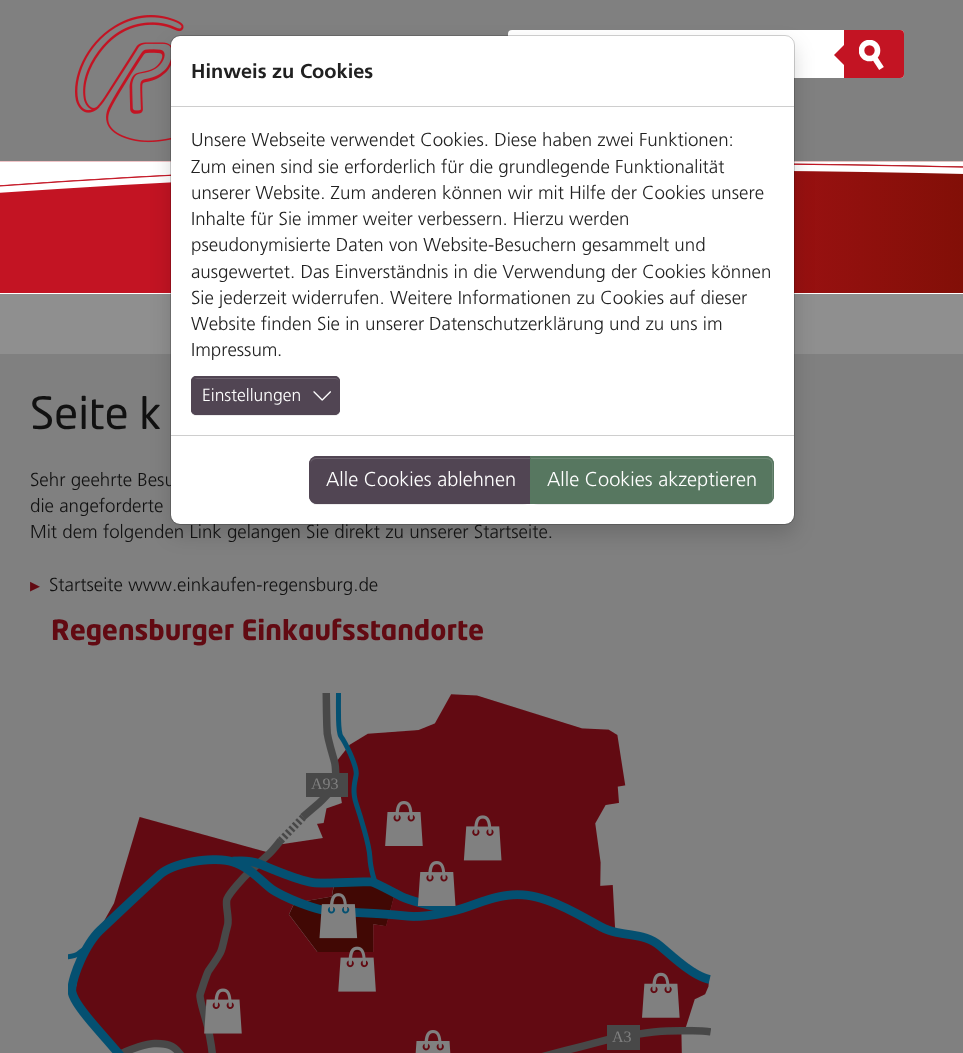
<!DOCTYPE html>
<meta charset="utf-8">
<style>body { margin: 0 } canvas { display: block }</style>
<canvas id="canvas" width="963" height="1053"></canvas>
<img id="img1" src="images/1.png" hidden>
<img id="img2" src="images/2.png" hidden>
<img id="img3" src="images/4.png" hidden>
<img id="img4" src="images/3.png" hidden>
<script>
window.onload = function () {
    const canvas = document.getElementById('canvas');
    const context = canvas.getContext('2d');
    context.miterLimit = 4;
    context.fontKerning = 'none';
    let gradient;

    context.fillStyle = 'rgb(128, 128, 128)';
    context.fillRect(0, 0, 963, 1053);
    context.drawImage(document.getElementById('img1'), 75, 15, 109, 128);
    context.fillStyle = 'rgb(255, 255, 255)';
    context.beginPath();
    context.roundRect(508, 30, 396, 48, 4);
    context.fill();
    context.fillStyle = 'rgb(195, 20, 35)';
    context.beginPath();
    context.roundRect(844, 30, 60, 48, [0, 4, 4, 0]);
    context.fill();
    context.beginPath();
    context.moveTo(844, 45);
    context.lineTo(844, 65);
    context.lineTo(834, 55);
    context.closePath();
    context.fill();
    context.save();
    context.beginPath();
    context.rect(859, 40, 25, 30);
    context.clip();
    context.beginPath();
    context.arc(869.5, 50.5, 8, 0, 2 * Math.PI);
    context.strokeStyle = 'rgb(255, 255, 255)';
    context.lineWidth = 5.6;
    context.stroke();
    context.restore();
    context.beginPath();
    context.moveTo(874, 57);
    context.lineTo(881.5, 68.5);
    context.strokeStyle = 'rgb(255, 255, 255)';
    context.lineWidth = 5.6;
    context.stroke();
    context.fillStyle = 'rgb(255, 255, 255)';
    context.fillRect(0, 293, 963, 1);
    gradient = context.createLinearGradient(0, 227, 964, 227);
    gradient.addColorStop(0.5, 'rgb(195, 20, 35)');
    gradient.addColorStop(1, 'rgb(130, 15, 7)');
    context.fillStyle = gradient;
    context.fillRect(0, 161, 963, 132);
    context.drawImage(document.getElementById('img2'), 0, 161, 963, 32);
    context.fillStyle = 'rgb(143, 143, 143)';
    context.fillRect(0, 294, 963, 60);
    context.fillStyle = 'rgba(0, 0, 0, 0.15)';
    context.filter = 'blur(10px)';
    context.beginPath();
    context.roundRect(170, 45, 625, 490, 10);
    context.fill();
    context.filter = 'none';
    context.drawImage(document.getElementById('img3'), 68, 693, 643, 360);
    context.font = '44px "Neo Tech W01"';
    context.fillStyle = 'rgb(17, 17, 17)';
    context.fillText('Seite k', 30, 429);
    context.font = '300 18.75px "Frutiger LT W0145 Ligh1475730"';
    context.fillText('Sehr geehrte Besu', 30, 486);
    context.fillText('die angeforderte', 30, 512);
    context.fillText('Mit dem folgenden Link gelangen Sie direkt zu unserer Startseite.', 30, 538);
    context.fillStyle = 'rgb(255, 255, 255)';
    context.beginPath();
    context.roundRect(171, 36, 623, 488, 9);
    context.fill();
    context.beginPath();
    context.roundRect(170.5, 35.5, 624, 489, 9.5);
    context.strokeStyle = 'rgba(0, 0, 0, 0.18)';
    context.lineWidth = 1;
    context.stroke();
    context.fillStyle = 'rgba(0, 0, 0, 0.07)';
    context.filter = 'blur(0.5px)';
    context.beginPath();
    context.roundRect(309, 458, 222, 47, 8);
    context.fill();
    context.filter = 'none';
    context.fillStyle = 'rgb(81, 69, 83)';
    context.beginPath();
    context.roundRect(309, 456, 222, 48, [8, 0, 0, 8]);
    context.fill();
    context.fillStyle = 'rgb(107, 97, 109)';
    context.beginPath();
    context.moveTo(316, 459);
    context.lineTo(530, 459);
    context.lineTo(530, 458);
    context.lineTo(316, 458);
    context.bezierCurveTo(312, 458, 310, 461, 310, 465);
    context.bezierCurveTo(310, 462, 313, 459, 316, 459);
    context.closePath();
    context.fill();
    context.beginPath();
    context.roundRect(309.5, 456.5, 221, 47, [7.5, 0, 0, 7.5]);
    context.strokeStyle = 'rgb(81, 69, 83)';
    context.stroke();
    context.fillStyle = 'rgba(0, 0, 0, 0.07)';
    context.filter = 'blur(0.5px)';
    context.beginPath();
    context.roundRect(530, 458, 244, 47, 8);
    context.fill();
    context.filter = 'none';
    context.fillStyle = 'rgb(87, 119, 96)';
    context.beginPath();
    context.roundRect(530, 456, 244, 48, [0, 8, 8, 0]);
    context.fill();
    context.fillStyle = 'rgb(112, 139, 120)';
    context.beginPath();
    context.moveTo(531, 459);
    context.lineTo(766, 459);
    context.bezierCurveTo(770, 459, 772, 462, 772, 465);
    context.lineTo(772, 498);
    context.bezierCurveTo(772, 499, 772, 500, 771, 501);
    context.bezierCurveTo(772, 500, 773, 499, 773, 497);
    context.lineTo(773, 464);
    context.bezierCurveTo(773, 461, 770, 458, 767, 458);
    context.lineTo(531, 458);
    context.closePath();
    context.fill();
    context.beginPath();
    context.roundRect(530.5, 456.5, 243, 47, [0, 7.5, 7.5, 0]);
    context.strokeStyle = 'rgb(87, 119, 96)';
    context.stroke();
    context.font = '300 20px "Frutiger LT W0145 Ligh1475730"';
    context.fillStyle = 'rgb(255, 255, 255)';
    context.fillText('Alle Cookies akzeptieren', 547, 486);
    context.fillText('Alle Cookies ablehnen', 326, 486);
    context.fillStyle = 'rgba(0, 0, 0, 0.07)';
    context.filter = 'blur(0.5px)';
    context.beginPath();
    context.roundRect(191, 378, 149, 38, 5);
    context.fill();
    context.filter = 'none';
    context.fillStyle = 'rgb(81, 69, 83)';
    context.beginPath();
    context.roundRect(191, 376, 149, 39, 5);
    context.fill();
    context.fillStyle = 'rgb(107, 97, 109)';
    context.beginPath();
    context.moveTo(196, 379);
    context.lineTo(335, 379);
    context.bezierCurveTo(337, 379, 339, 380, 339, 382);
    context.bezierCurveTo(339, 380, 337, 378, 335, 378);
    context.lineTo(197, 378);
    context.bezierCurveTo(196, 378, 195, 379, 194, 379);
    context.closePath();
    context.fill();
    context.beginPath();
    context.roundRect(191.5, 376.5, 148, 38, 4.5);
    context.strokeStyle = 'rgb(81, 69, 83)';
    context.stroke();
    context.drawImage(document.getElementById('img4'), 313, 391, 18, 10);
    context.font = '300 17.5px "Frutiger LT W0145 Ligh1475730"';
    context.fillStyle = 'rgb(255, 255, 255)';
    context.fillText('Einstellungen', 202, 401);
    context.font = '300 18.75px "Frutiger LT W0145 Ligh1475730"';
    context.fillStyle = 'rgb(33, 33, 33)';
    context.fillText('.', 277, 356);
    context.fillText('Impressum', 191, 356);
    context.fillText('und zu uns im', 609, 330);
    context.fillText('Datenschutzerklärung', 429, 330);
    context.fillText('Website finden Sie in unserer', 191, 330);
    context.fillText('Sie jederzeit widerrufen. Weitere Informationen zu Cookies auf dieser', 191, 304);
    context.fillText('ausgewertet. Das Einverständnis in die Verwendung der Cookies können', 191, 278);
    context.fillText('pseudonymisierte Daten von Website-Besuchern gesammelt und', 191, 251);
    context.fillText('Inhalte für Sie immer weiter verbessern. Hierzu werden', 191, 225);
    context.fillText('unserer Website. Zum anderen können wir mit Hilfe der Cookies unsere', 191, 199);
    context.fillText('Zum einen sind sie erforderlich für die grundlegende Funktionalität', 191, 173);
    context.fillText('Unsere Webseite verwendet Cookies. Diese haben zwei Funktionen:', 191, 146);
    context.fillStyle = 'rgb(206, 206, 206)';
    context.fillRect(171, 435, 623, 1);
    context.font = 'bold 20px "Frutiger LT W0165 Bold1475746"';
    context.fillStyle = 'rgb(33, 33, 33)';
    context.fillText('Hinweis zu Cookies', 191, 78);
    context.fillStyle = 'rgb(206, 206, 206)';
    context.fillRect(171, 106, 623, 1);
    context.font = '13px DejaVu Sans';
    context.fillStyle = 'rgb(98, 10, 18)';
    context.fillText('▶︎', 30, 590);
    context.font = '300 18.75px "Frutiger LT W0145 Ligh1475730"';
    context.fillStyle = 'rgb(17, 17, 17)';
    context.fillText('Startseite www.einkaufen-regensburg.de', 49, 591);
    context.font = 'bold 27.5px "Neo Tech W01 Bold"';
    context.fillStyle = 'rgb(98, 10, 18)';
    context.fillText('Regensburger Einkaufsstandorte', 51, 640);
    context.font = '16px Liberation Serif';
    context.fillStyle = 'rgb(128, 128, 128)';
    context.fillText('A93', 311, 789);
    context.fillText('A3', 612, 1042);
};
</script>
